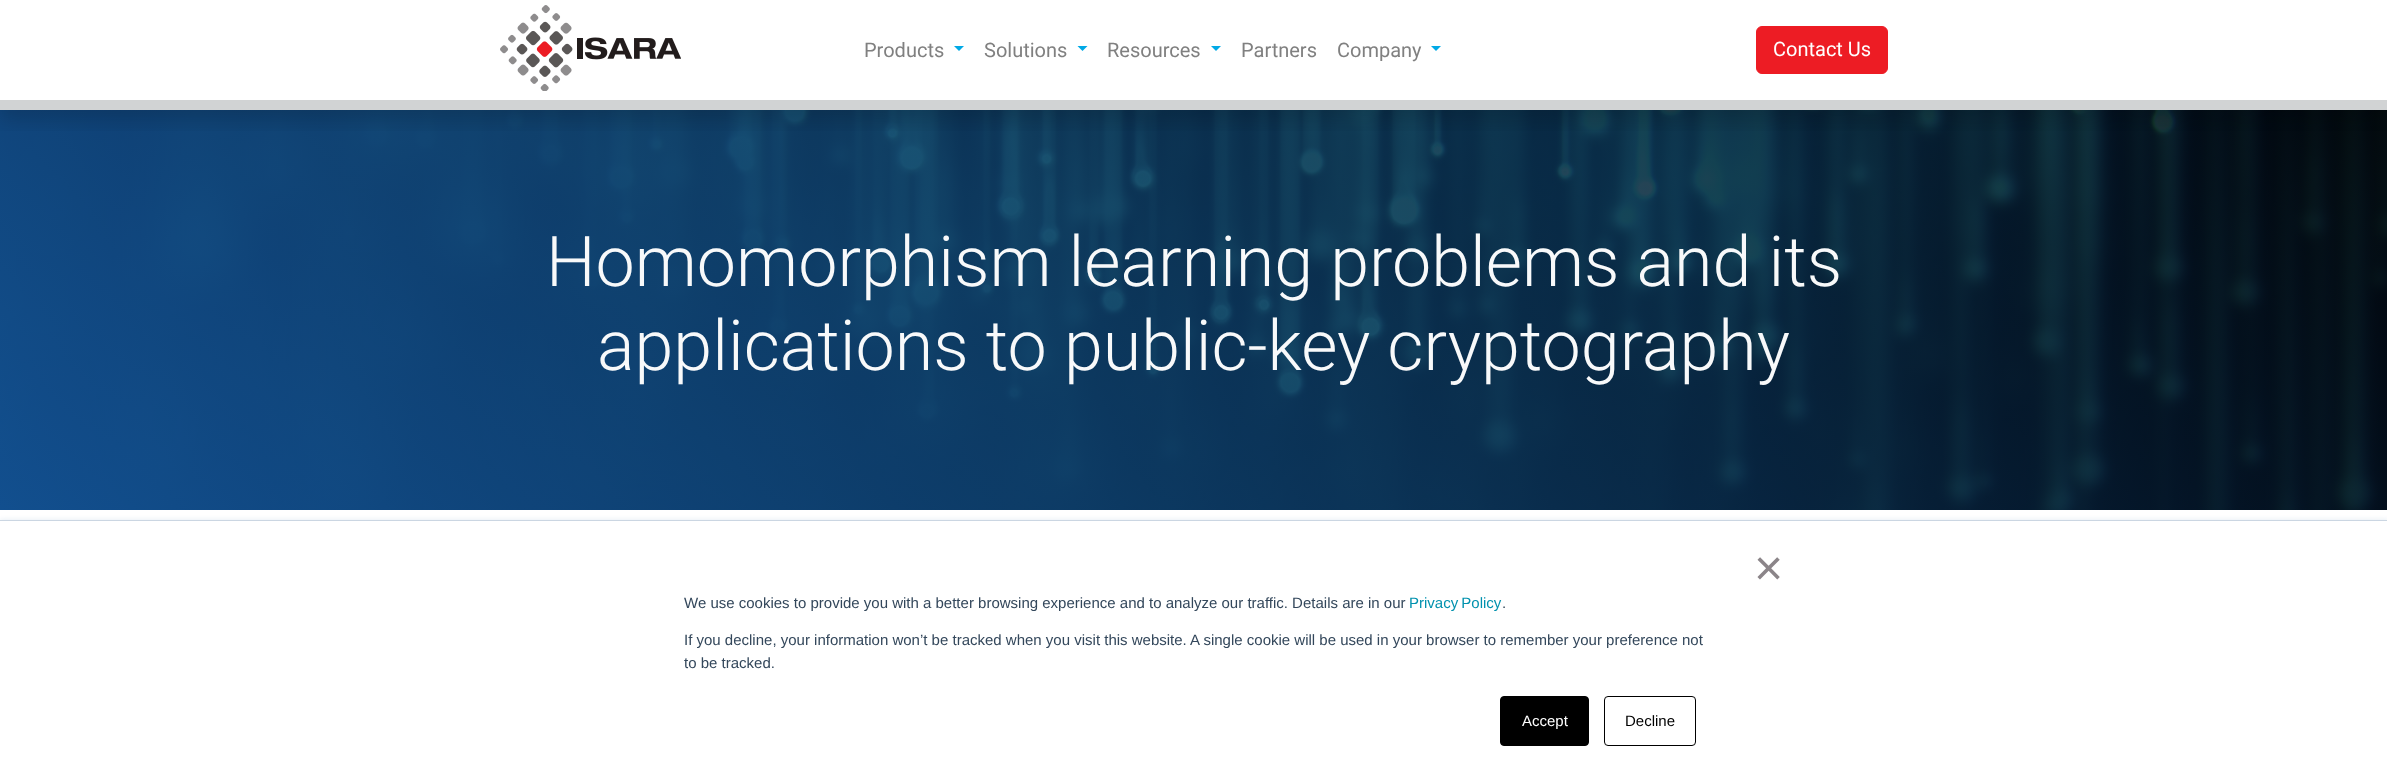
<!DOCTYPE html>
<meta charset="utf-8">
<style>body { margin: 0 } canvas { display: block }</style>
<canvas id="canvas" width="2387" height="778"></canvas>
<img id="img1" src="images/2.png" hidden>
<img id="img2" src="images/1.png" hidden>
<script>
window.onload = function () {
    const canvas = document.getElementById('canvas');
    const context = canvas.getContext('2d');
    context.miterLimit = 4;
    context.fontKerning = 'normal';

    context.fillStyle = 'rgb(255, 255, 255)';
    context.fillRect(0, 0, 2387, 778);
    context.drawImage(document.getElementById('img1'), 0, 110, 2387, 400);
    context.save();
    context.beginPath();
    context.rect(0, 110, 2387, 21);
    context.clip();
    context.fillStyle = 'rgba(0, 0, 0, 0.15)';
    context.filter = 'blur(10px)';
    context.beginPath();
    context.rect(0, 10, 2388, 110);
    context.fill();
    context.filter = 'none';
    context.restore();
    context.fillStyle = 'rgb(209, 211, 212)';
    context.fillRect(0, 100, 2387, 10);
    context.drawImage(document.getElementById('img2'), 500, 5, 181, 86);
    context.fillStyle = 'rgb(0, 169, 230)';
    context.beginPath();
    context.moveTo(954, 46);
    context.lineTo(964, 46);
    context.lineTo(959, 51);
    context.closePath();
    context.fill();
    context.beginPath();
    context.moveTo(1077.5, 46);
    context.lineTo(1087.5, 46);
    context.lineTo(1082.5, 51);
    context.closePath();
    context.fill();
    context.beginPath();
    context.moveTo(1211, 46);
    context.lineTo(1221, 46);
    context.lineTo(1216, 51);
    context.closePath();
    context.fill();
    context.beginPath();
    context.moveTo(1431, 46);
    context.lineTo(1441, 46);
    context.lineTo(1436, 51);
    context.closePath();
    context.fill();
    context.fillStyle = 'rgb(237, 28, 36)';
    context.beginPath();
    context.roundRect(1756.5, 26.5, 131, 47, 5.5);
    context.fill();
    context.strokeStyle = 'rgb(237, 28, 36)';
    context.stroke();
    context.fillStyle = 'rgb(234, 240, 246)';
    context.filter = 'blur(2px)';
    context.beginPath();
    context.rect(0, 519, 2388, 259);
    context.fill();
    context.filter = 'none';
    context.fillStyle = 'rgb(255, 255, 255)';
    context.fillRect(0, 521, 2387, 257);
    context.fillStyle = 'rgb(203, 214, 226)';
    context.fillRect(0, 520, 2387, 1);
    context.fillStyle = 'rgb(0, 0, 0)';
    context.beginPath();
    context.roundRect(1500.5, 696.5, 88, 49, 3.5);
    context.fill();
    context.strokeStyle = 'rgb(0, 0, 0)';
    context.stroke();
    context.beginPath();
    context.roundRect(1604.5, 696.5, 91, 49, 3.5);
    context.stroke();
    context.font = '20px Roboto';
    context.fillStyle = 'rgb(128, 128, 128)';
    context.fillText('Products', 864, 57);
    context.fillText('Solutions', 984, 57);
    context.fillText('Resources', 1107, 57);
    context.fillText('Partners', 1241, 57);
    context.fillText('Company', 1337, 57);
    context.fillStyle = 'rgb(255, 255, 255)';
    context.fillText('Contact Us', 1773, 56);
    context.font = '300 70px Roboto';
    context.fillStyle = 'rgb(248, 249, 250)';
    context.fillText('Homomorphism learning problems and its', 546, 286);
    context.fillText('applications to public-key cryptography', 597, 370);
    context.font = '50px Liberation Sans';
    context.fillStyle = 'rgb(139, 133, 137)';
    context.fillText('×', 1754, 585);
    context.font = '15px Liberation Sans';
    context.fillStyle = 'rgb(51, 71, 91)';
    context.fillText('We use cookies to provide you with a better browsing experience and to analyze our traffic. Details are in our', 684, 608);
    context.wordSpacing = '-1px';
    context.fillStyle = 'rgb(0, 145, 174)';
    context.fillText('Privacy Policy', 1409, 608);
    context.wordSpacing = '0px';
    context.fillStyle = 'rgb(51, 71, 91)';
    context.fillText('.', 1502, 608);
    context.fillText('If you decline, your information won’t be tracked when you visit this website. A single cookie will be used in your browser to remember your preference not', 684, 645);
    context.fillText('to be tracked.', 684, 668);
    context.fillStyle = 'rgb(255, 255, 255)';
    context.fillText('Accept', 1522, 726);
    context.fillStyle = 'rgb(0, 0, 0)';
    context.fillText('Decline', 1625, 726);
};
</script>
